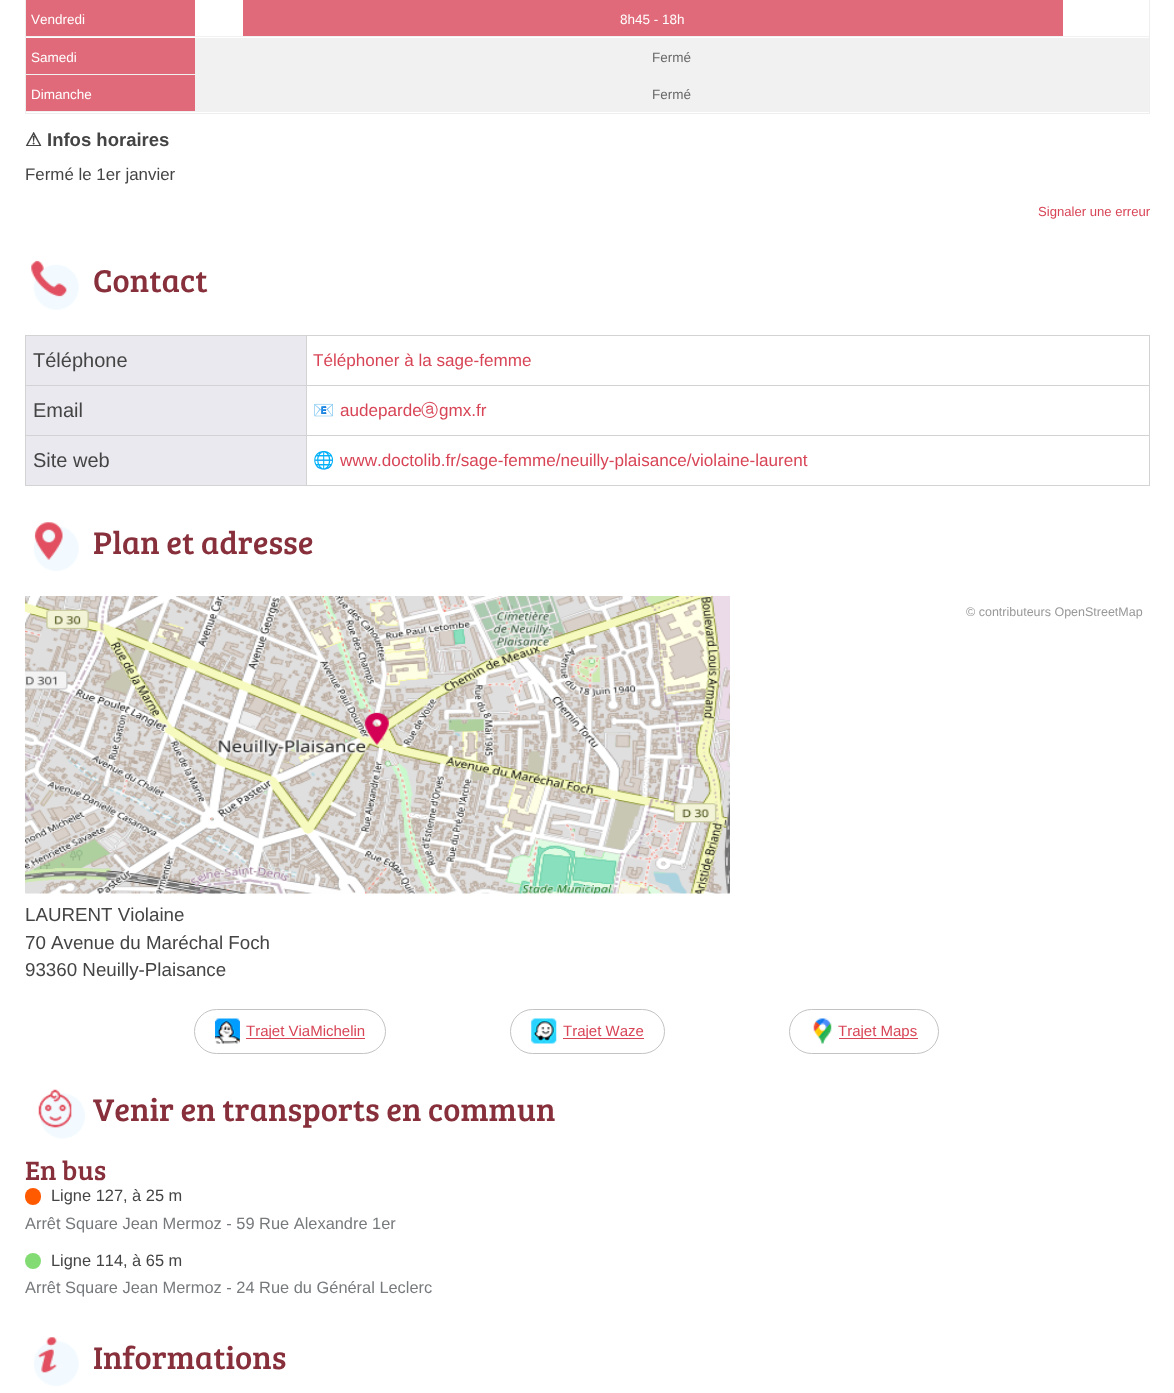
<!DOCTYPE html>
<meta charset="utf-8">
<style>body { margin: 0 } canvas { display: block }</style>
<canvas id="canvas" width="1174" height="1393"></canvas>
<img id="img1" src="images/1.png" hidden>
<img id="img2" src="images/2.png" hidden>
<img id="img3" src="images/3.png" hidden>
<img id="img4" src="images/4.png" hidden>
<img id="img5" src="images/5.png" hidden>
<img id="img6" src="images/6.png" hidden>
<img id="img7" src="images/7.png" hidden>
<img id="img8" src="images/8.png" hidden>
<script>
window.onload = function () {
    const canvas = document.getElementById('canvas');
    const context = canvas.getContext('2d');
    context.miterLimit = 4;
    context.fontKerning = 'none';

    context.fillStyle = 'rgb(255, 255, 255)';
    context.fillRect(0, 0, 1174, 1393);
    context.strokeStyle = 'rgb(238, 238, 238)';
    context.strokeRect(25.5, -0.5, 1124, 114);
    context.fillStyle = 'rgb(241, 241, 241)';
    context.fillRect(26, 36, 1123, 1);
    context.fillStyle = 'rgb(224, 106, 121)';
    context.fillRect(26, 0, 169, 36);
    context.fillRect(243, 0, 820, 36);
    context.fillStyle = 'rgb(241, 241, 241)';
    context.fillRect(26, 74, 1123, 1);
    context.fillStyle = 'rgb(224, 106, 121)';
    context.fillRect(26, 38, 169, 36);
    context.fillStyle = 'rgb(241, 241, 241)';
    context.fillRect(195, 38, 954, 36);
    context.fillRect(26, 111, 1123, 1);
    context.fillStyle = 'rgb(224, 106, 121)';
    context.fillRect(26, 75, 169, 36);
    context.fillStyle = 'rgb(241, 241, 241)';
    context.fillRect(195, 75, 954, 36);
    context.drawImage(document.getElementById('img1'), 31, 260, 48, 50);
    context.fillStyle = 'rgb(234, 233, 239)';
    context.fillRect(26, 336, 280, 49);
    context.fillStyle = 'rgb(211, 211, 211)';
    context.fillRect(306, 335, 844, 1);
    context.fillRect(306, 385, 844, 1);
    context.fillRect(306, 435, 844, 1);
    context.fillRect(1149, 435, 1, 51);
    context.fillRect(306, 485, 844, 1);
    context.fillRect(306, 435, 1, 51);
    context.fillRect(25, 435, 283, 1);
    context.fillRect(306, 385, 1, 51);
    context.fillRect(25, 385, 283, 1);
    context.fillRect(306, 335, 1, 51);
    context.fillRect(25, 335, 283, 1);
    context.fillRect(25, 485, 283, 1);
    context.fillRect(25, 435, 1, 51);
    context.fillRect(25, 385, 1, 51);
    context.fillRect(25, 335, 1, 51);
    context.fillRect(1149, 385, 1, 51);
    context.fillRect(1149, 335, 1, 51);
    context.fillStyle = 'rgb(234, 233, 239)';
    context.fillRect(26, 386, 280, 49);
    context.fillRect(26, 436, 280, 49);
    context.drawImage(document.getElementById('img2'), 34, 522, 45, 49);
    context.drawImage(document.getElementById('img3'), 25, 596, 705, 298);
    context.beginPath();
    context.roundRect(194.5, 1009.5, 191, 44, 22);
    context.strokeStyle = 'rgb(195, 195, 195)';
    context.stroke();
    context.drawImage(document.getElementById('img4'), 215, 1018, 25, 26);
    context.fillStyle = 'rgb(216, 69, 87)';
    context.fillRect(246, 1038, 119, 1);
    context.beginPath();
    context.roundRect(510.5, 1009.5, 154, 44, 22);
    context.stroke();
    context.drawImage(document.getElementById('img5'), 531, 1018, 26, 26);
    context.fillRect(563, 1038, 81, 1);
    context.beginPath();
    context.roundRect(789.5, 1009.5, 149, 44, 22);
    context.stroke();
    context.drawImage(document.getElementById('img6'), 813, 1018, 19, 26);
    context.fillRect(839, 1038, 79, 1);
    context.drawImage(document.getElementById('img7'), 38, 1089, 47, 50);
    context.fillStyle = 'rgb(255, 90, 0)';
    context.beginPath();
    context.roundRect(25, 1188, 16, 17, 8);
    context.fill();
    context.fillStyle = 'rgb(130, 220, 115)';
    context.beginPath();
    context.arc(33, 1261, 8, 0, 2 * Math.PI);
    context.fill();
    context.drawImage(document.getElementById('img8'), 34, 1337, 45, 49);
    context.font = '13.5px Liberation Sans';
    context.fillStyle = 'rgb(255, 255, 255)';
    context.fillText('Vendredi', 31, 24);
    context.fillText('8h45 - 18h', 620, 24);
    context.fillText('Samedi', 31, 62);
    context.fillStyle = 'rgb(105, 105, 105)';
    context.fillText('Fermé', 652, 62);
    context.fillStyle = 'rgb(255, 255, 255)';
    context.fillText('Dimanche', 31, 99);
    context.fillStyle = 'rgb(105, 105, 105)';
    context.fillText('Fermé', 652, 99);
    context.font = 'bold 18.5px DejaVu Sans';
    context.fillStyle = 'rgb(68, 68, 68)';
    context.fillText('⚠', 25, 146);
    context.font = 'bold 18.5px Liberation Sans';
    context.fillText('Infos horaires', 47, 146);
    context.font = '16.9px Liberation Sans';
    context.fillText('Fermé le 1er janvier', 25, 180);
    context.font = '13.1px Liberation Sans';
    context.fillStyle = 'rgb(216, 69, 87)';
    context.fillText('Signaler une erreur', 1038, 216);
    context.font = '32.5px Bree Serif';
    context.fillStyle = 'rgb(135, 47, 59)';
    context.fillText('Contact', 93, 292);
    context.font = '20px Liberation Sans';
    context.fillStyle = 'rgb(68, 68, 68)';
    context.fillText('Téléphone', 33, 367);
    context.font = '17.1px Liberation Sans';
    context.fillStyle = 'rgb(216, 69, 87)';
    context.fillText('Téléphoner à la sage-femme', 313, 366);
    context.font = '20px Liberation Sans';
    context.fillStyle = 'rgb(68, 68, 68)';
    context.fillText('Email', 33, 417);
    context.font = '17.1px Noto Color Emoji';
    context.fillStyle = 'rgb(216, 69, 87)';
    context.fillText('📧', 313, 416);
    context.font = '17.1px Liberation Sans';
    context.fillText('audeparde', 340, 416);
    context.font = '500 17.1px WenQuanYi Zen Hei';
    context.fillText('ⓐ', 421, 416);
    context.font = '17.1px Liberation Sans';
    context.fillText('gmx.fr', 439, 416);
    context.font = '20px Liberation Sans';
    context.fillStyle = 'rgb(68, 68, 68)';
    context.fillText('Site web', 33, 467);
    context.font = '17.1px Noto Color Emoji';
    context.fillStyle = 'rgb(216, 69, 87)';
    context.fillText('🌐', 313, 466);
    context.font = '17.1px Liberation Sans';
    context.fillText('www.doctolib.fr/sage-femme/neuilly-plaisance/violaine-laurent', 340, 466);
    context.font = '32.5px Bree Serif';
    context.fillStyle = 'rgb(135, 47, 59)';
    context.fillText('Plan et adresse', 93, 554);
    context.font = '12.5px Liberation Sans';
    context.fillStyle = 'rgb(153, 153, 153)';
    context.fillText('© contributeurs OpenStreetMap', 966, 616);
    context.font = '18.75px Liberation Sans';
    context.fillStyle = 'rgb(68, 68, 68)';
    context.fillText('LAURENT Violaine', 25, 921);
    context.fillText('70 Avenue du Maréchal Foch', 25, 949);
    context.fillText('93360 Neuilly-Plaisance', 25, 976);
    context.font = '15px Liberation Sans';
    context.fillStyle = 'rgb(216, 69, 87)';
    context.fillText('Trajet ViaMichelin', 246, 1036);
    context.fillText('Trajet Waze', 563, 1036);
    context.fillText('Trajet Maps', 838, 1036);
    context.font = '32.5px Bree Serif';
    context.fillStyle = 'rgb(135, 47, 59)';
    context.fillText('Venir en transports en commun', 93, 1121);
    context.font = '27.5px Bree Serif';
    context.fillText('En bus', 25, 1180);
    context.font = '16.4px Liberation Sans';
    context.fillStyle = 'rgb(68, 68, 68)';
    context.fillText('Ligne 127, à 25 m', 51, 1201);
    context.fillStyle = 'rgb(119, 122, 124)';
    context.fillText('Arrêt Square Jean Mermoz - 59 Rue Alexandre 1er', 25, 1229);
    context.fillStyle = 'rgb(68, 68, 68)';
    context.fillText('Ligne 114, à 65 m', 51, 1266);
    context.fillStyle = 'rgb(119, 122, 124)';
    context.fillText('Arrêt Square Jean Mermoz - 24 Rue du Général Leclerc', 25, 1293);
    context.font = '32.5px Bree Serif';
    context.fillStyle = 'rgb(135, 47, 59)';
    context.fillText('Informations', 93, 1369);
};
</script>
